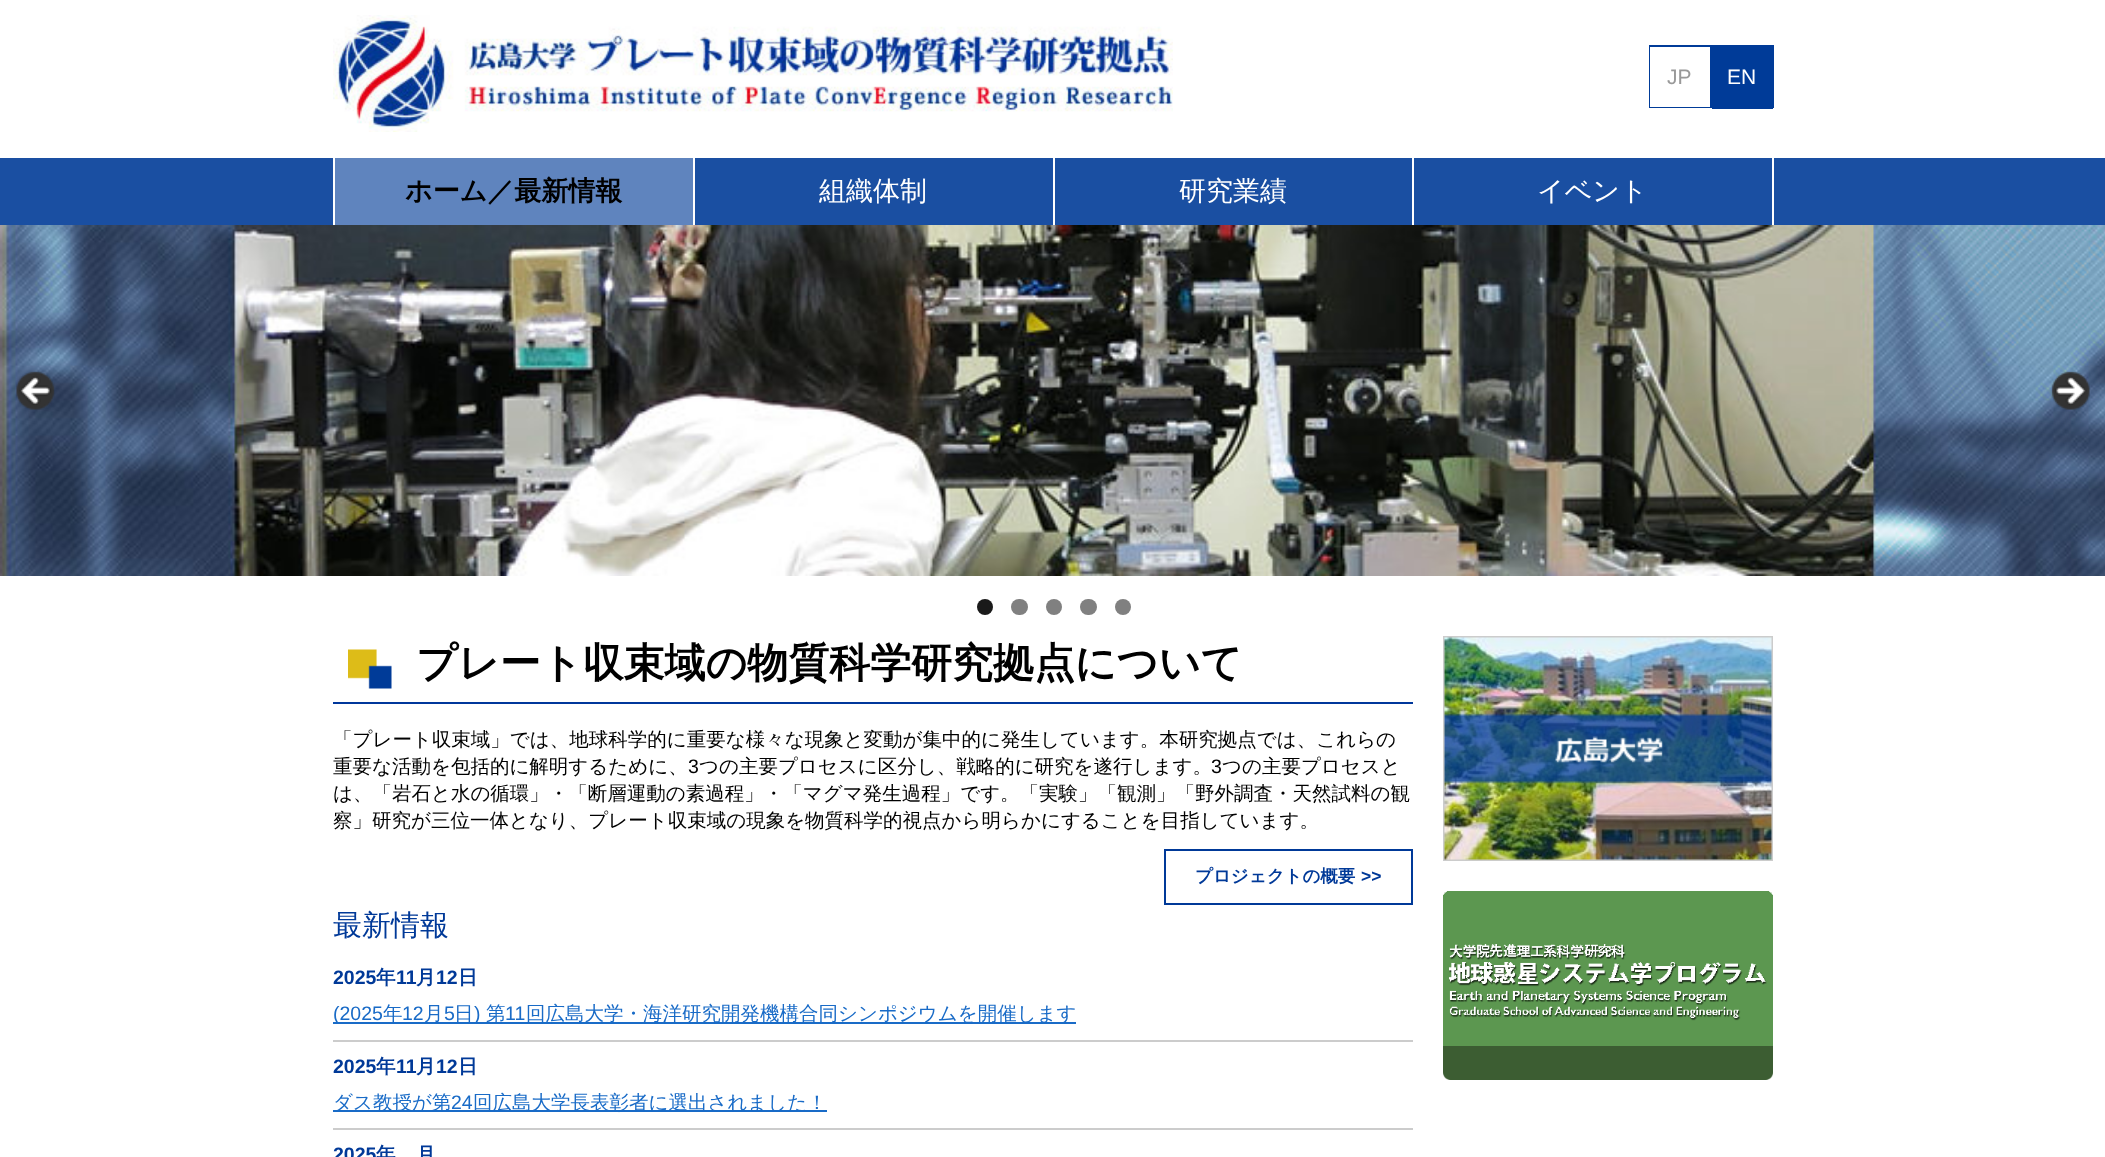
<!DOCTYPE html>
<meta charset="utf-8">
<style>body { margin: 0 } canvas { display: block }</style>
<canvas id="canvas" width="2105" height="1157"></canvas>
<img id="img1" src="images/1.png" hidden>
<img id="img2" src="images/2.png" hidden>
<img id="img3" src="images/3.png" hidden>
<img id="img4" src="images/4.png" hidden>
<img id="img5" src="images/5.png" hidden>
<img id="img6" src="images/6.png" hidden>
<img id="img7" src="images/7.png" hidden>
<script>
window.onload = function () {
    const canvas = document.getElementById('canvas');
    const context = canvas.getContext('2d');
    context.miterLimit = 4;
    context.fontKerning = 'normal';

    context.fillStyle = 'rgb(255, 255, 255)';
    context.fillRect(0, 0, 2105, 1157);
    context.drawImage(document.getElementById('img1'), 333, 15, 840, 117);
    context.strokeStyle = 'rgb(0, 59, 152)';
    context.lineWidth = 2;
    context.strokeRect(1650, 46, 61, 61);
    context.fillRect(1650, 47, 60, 60);
    context.fillStyle = 'rgb(0, 59, 152)';
    context.fillRect(1712, 45, 61, 2);
    context.fillRect(1772, 45, 2, 63);
    context.fillRect(1712, 107, 61, 2);
    context.fillRect(1712, 47, 60, 60);
    context.fillStyle = 'rgb(26, 79, 162)';
    context.fillRect(0, 158, 2105, 67);
    context.fillStyle = 'rgb(255, 255, 255)';
    context.fillRect(333, 158, 2, 67);
    context.fillRect(693, 158, 2, 67);
    context.fillStyle = 'rgb(95, 132, 190)';
    context.fillRect(335, 158, 358, 67);
    context.fillStyle = 'rgb(255, 255, 255)';
    context.fillRect(1053, 158, 2, 67);
    context.fillRect(1412, 158, 2, 67);
    context.fillRect(1772, 158, 2, 67);
    context.drawImage(document.getElementById('img2'), 0, 225, 2105, 351);
    context.drawImage(document.getElementById('img3'), 16, 371, 39, 39);
    context.drawImage(document.getElementById('img4'), 2051, 371, 39, 39);
    context.fillStyle = 'rgb(26, 26, 26)';
    context.beginPath();
    context.arc(985, 607, 8, 0, 2 * Math.PI);
    context.fill();
    context.fillStyle = 'rgb(128, 128, 128)';
    context.beginPath();
    context.roundRect(1011, 599, 17, 16, 8);
    context.fill();
    context.beginPath();
    context.arc(1054, 607, 8, 0, 2 * Math.PI);
    context.fill();
    context.beginPath();
    context.roundRect(1080, 599, 17, 16, 8);
    context.fill();
    context.beginPath();
    context.arc(1123, 607, 8, 0, 2 * Math.PI);
    context.fill();
    context.drawImage(document.getElementById('img5'), 348, 649, 44, 40);
    context.fillStyle = 'rgb(0, 55, 155)';
    context.fillRect(333, 702, 1080, 2);
    context.strokeStyle = 'rgb(0, 57, 152)';
    context.strokeRect(1165, 850, 247, 54);
    context.fillStyle = 'rgb(204, 204, 204)';
    context.fillRect(333, 1040, 1080, 2);
    context.fillStyle = 'rgb(25, 107, 199)';
    context.fillRect(333, 1022, 743, 2);
    context.fillStyle = 'rgb(204, 204, 204)';
    context.fillRect(333, 1128, 1080, 2);
    context.fillStyle = 'rgb(25, 107, 199)';
    context.fillRect(333, 1110, 494, 2);
    context.drawImage(document.getElementById('img6'), 1443, 636, 330, 225);
    context.drawImage(document.getElementById('img7'), 1443, 891, 330, 189);
    context.font = '21px Liberation Sans';
    context.fillStyle = 'rgb(153, 153, 153)';
    context.fillText('JP', 1667, 84);
    context.fillStyle = 'rgb(255, 255, 255)';
    context.fillText('EN', 1727, 84);
    context.font = 'bold 27px WenQuanYi Zen Hei';
    context.fillStyle = 'rgb(0, 0, 0)';
    context.fillText('ホーム／最新情報', 405, 200);
    context.font = '500 27px WenQuanYi Zen Hei';
    context.fillStyle = 'rgb(255, 255, 255)';
    context.fillText('組織体制', 819, 200);
    context.fillText('研究業績', 1179, 200);
    context.fillText('イベント', 1537, 200);
    context.font = 'bold 40.95px WenQuanYi Zen Hei';
    context.fillStyle = 'rgb(0, 0, 0)';
    context.fillText('プレート収束域の物質科学研究拠点について', 416, 677);
    context.font = '500 19.5px WenQuanYi Zen Hei';
    context.fillText('「プレート収束域」では、地球科学的に重要な様々な現象と変動が集中的に発生しています。本研究拠点では、これらの', 333, 746);
    context.fillText('重要な活動を包括的に解明するために、', 333, 773);
    context.font = '19.5px Liberation Sans';
    context.fillText('3', 688, 773);
    context.font = '500 19.5px WenQuanYi Zen Hei';
    context.fillText('つの主要プロセスに区分し、戦略的に研究を遂行します。', 699, 773);
    context.font = '19.5px Liberation Sans';
    context.fillText('3', 1211, 773);
    context.font = '500 19.5px WenQuanYi Zen Hei';
    context.fillText('つの主要プロセスと', 1222, 773);
    context.fillText('は、「岩石と水の循環」・「断層運動の素過程」・「マグマ発生過程」です。「実験」「観測」「野外調査・天然試料の観', 333, 800);
    context.fillText('察」研究が三位一体となり、プレート収束域の現象を物質科学的視点から明らかにすることを目指しています。', 333, 827);
    context.font = 'bold 17.5px WenQuanYi Zen Hei';
    context.fillStyle = 'rgb(0, 57, 152)';
    context.fillText('プロジェクトの概要', 1195, 882);
    context.font = 'bold 17.5px Liberation Sans';
    context.fillText('>>', 1361, 882);
    context.font = '500 29px WenQuanYi Zen Hei';
    context.fillText('最新情報', 333, 935);
    context.font = 'bold 19.5px Liberation Sans';
    context.fillText('2025', 333, 984);
    context.font = 'bold 19.5px WenQuanYi Zen Hei';
    context.fillText('年', 376, 984);
    context.font = 'bold 19.5px Liberation Sans';
    context.fillText('11', 396, 984);
    context.font = 'bold 19.5px WenQuanYi Zen Hei';
    context.fillText('月', 416, 984);
    context.font = 'bold 19.5px Liberation Sans';
    context.fillText('12', 436, 984);
    context.font = 'bold 19.5px WenQuanYi Zen Hei';
    context.fillText('日', 458, 984);
    context.font = '19.5px Liberation Sans';
    context.fillStyle = 'rgb(25, 107, 199)';
    context.fillText('(2025', 333, 1020);
    context.font = '500 19.5px WenQuanYi Zen Hei';
    context.fillText('年', 383, 1020);
    context.font = '19.5px Liberation Sans';
    context.fillText('12', 402, 1020);
    context.font = '500 19.5px WenQuanYi Zen Hei';
    context.fillText('月', 424, 1020);
    context.font = '19.5px Liberation Sans';
    context.fillText('5', 444, 1020);
    context.font = '500 19.5px WenQuanYi Zen Hei';
    context.fillText('日', 454, 1020);
    context.font = '19.5px Liberation Sans';
    context.fillText(')', 474, 1020);
    context.font = '500 19.5px WenQuanYi Zen Hei';
    context.fillText('第', 486, 1020);
    context.font = '19.5px Liberation Sans';
    context.fillText('11', 505, 1020);
    context.font = '500 19.5px WenQuanYi Zen Hei';
    context.fillText('回広島大学・海洋研究開発機構合同シンポジウムを開催します', 526, 1020);
    context.font = 'bold 19.5px Liberation Sans';
    context.fillStyle = 'rgb(0, 57, 152)';
    context.fillText('2025', 333, 1073);
    context.font = 'bold 19.5px WenQuanYi Zen Hei';
    context.fillText('年', 376, 1073);
    context.font = 'bold 19.5px Liberation Sans';
    context.fillText('11', 396, 1073);
    context.font = 'bold 19.5px WenQuanYi Zen Hei';
    context.fillText('月', 416, 1073);
    context.font = 'bold 19.5px Liberation Sans';
    context.fillText('12', 436, 1073);
    context.font = 'bold 19.5px WenQuanYi Zen Hei';
    context.fillText('日', 458, 1073);
    context.font = '500 19.5px WenQuanYi Zen Hei';
    context.fillStyle = 'rgb(25, 107, 199)';
    context.fillText('ダス教授が第', 333, 1109);
    context.font = '19.5px Liberation Sans';
    context.fillText('24', 451, 1109);
    context.font = '500 19.5px WenQuanYi Zen Hei';
    context.fillText('回広島大学長表彰者に選出されました！', 473, 1109);
    context.font = 'bold 19.5px Liberation Sans';
    context.fillStyle = 'rgb(0, 57, 152)';
    context.fillText('2025', 333, 1161);
    context.font = 'bold 19.5px WenQuanYi Zen Hei';
    context.fillText('年', 376, 1161);
    context.fillText('月', 416, 1161);
};
</script>
